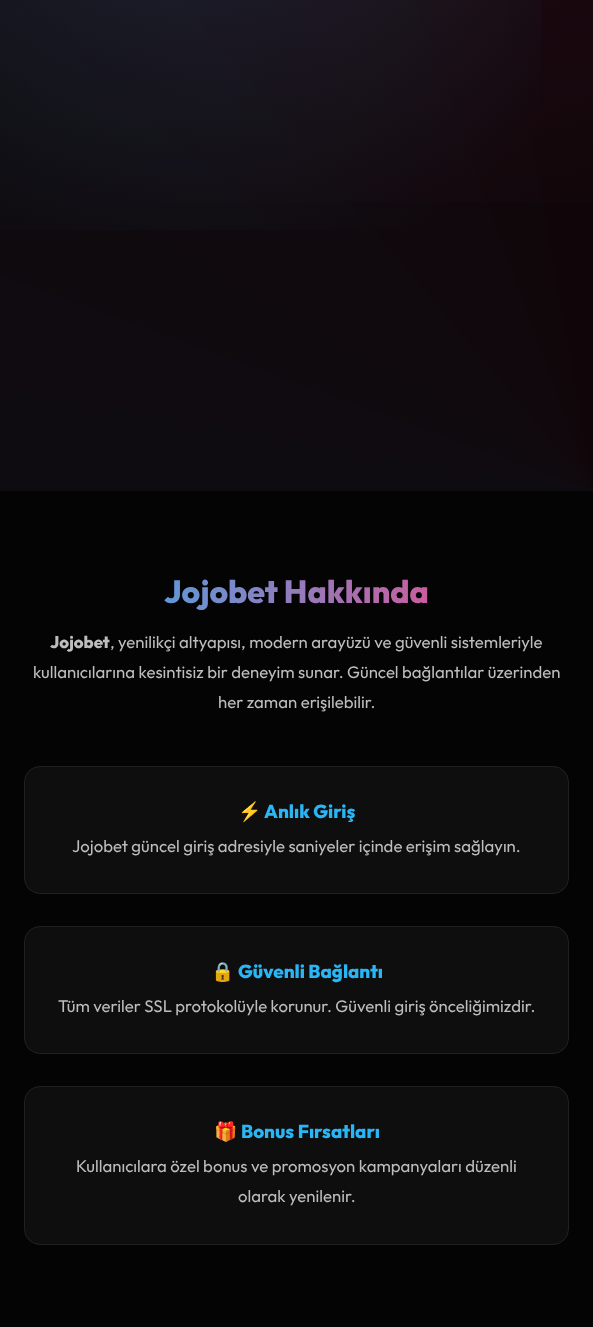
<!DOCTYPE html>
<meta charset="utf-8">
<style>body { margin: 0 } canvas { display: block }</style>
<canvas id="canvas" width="593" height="1327"></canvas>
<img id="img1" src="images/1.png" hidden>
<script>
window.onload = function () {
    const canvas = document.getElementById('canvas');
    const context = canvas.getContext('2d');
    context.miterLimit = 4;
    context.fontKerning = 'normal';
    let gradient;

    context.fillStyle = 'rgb(4, 4, 4)';
    context.fillRect(0, 0, 593, 1327);
    gradient = context.createRadialGradient(415, -438, 0, 415, -438, 1017);
    gradient.addColorStop(0, 'rgb(29, 10, 17)');
    gradient.addColorStop(0.7, 'rgb(4, 4, 4)');
    context.fillStyle = gradient;
    context.fillRect(0, 0, 593, 202);
    gradient = context.createRadialGradient(178, -172, 0, 178, -172, 783);
    gradient.addColorStop(0, 'rgba(41, 182, 246, 0.15)');
    gradient.addColorStop(0.6, 'rgba(41, 182, 246, 0)');
    context.fillStyle = gradient;
    context.fillRect(0, 0, 541, 230);
    context.drawImage(document.getElementById('img1'), 0, 0, 593, 491);
    context.fillStyle = 'rgb(14, 14, 14)';
    context.beginPath();
    context.roundRect(24, 766, 545, 128, 16);
    context.fill();
    context.beginPath();
    context.roundRect(24.5, 766.5, 544, 127, 15.5);
    context.strokeStyle = 'rgba(255, 255, 255, 0.08)';
    context.stroke();
    context.beginPath();
    context.roundRect(24, 926, 545, 128, 16);
    context.fill();
    context.beginPath();
    context.roundRect(24.5, 926.5, 544, 127, 15.5);
    context.stroke();
    context.beginPath();
    context.roundRect(24, 1086, 545, 159, 16);
    context.fill();
    context.beginPath();
    context.roundRect(24.5, 1086.5, 544, 158, 15.5);
    context.stroke();
    context.font = '800 32px Outfit';
    gradient = context.createLinearGradient(24, 591, 569, 591);
    gradient.addColorStop(0, 'rgb(41, 182, 246)');
    gradient.addColorStop(1, 'rgb(255, 64, 129)');
    context.fillStyle = gradient;
    context.fillText('Jojobet Hakkında', 164, 603);
    context.font = '800 16.8px Outfit';
    context.fillStyle = 'rgb(189, 189, 189)';
    context.fillText('Jojobet', 50, 648);
    context.font = '16.8px Outfit';
    context.fillText(', yenilikçi altyapısı, modern arayüzü ve güvenli sistemleriyle', 110, 648);
    context.fillText('kullanıcılarına kesintisiz bir deneyim sunar. Güncel bağlantılar üzerinden', 33, 678);
    context.fillText('her zaman erişilebilir.', 218, 708);
    context.font = 'bold 18.75px Noto Color Emoji';
    context.fillStyle = 'rgb(41, 182, 246)';
    context.fillText('⚡', 238, 818);
    context.font = '800 18.75px Outfit';
    context.fillText('Anlık Giriş', 264, 818);
    context.font = '16.8px Outfit';
    context.fillStyle = 'rgb(189, 189, 189)';
    context.fillText('Jojobet güncel giriş adresiyle saniyeler içinde erişim sağlayın.', 72, 852);
    context.font = 'bold 18.75px Noto Color Emoji';
    context.fillStyle = 'rgb(41, 182, 246)';
    context.fillText('🔒', 211, 978);
    context.font = '800 18.75px Outfit';
    context.fillText('Güvenli Bağlantı', 238, 978);
    context.font = '16.8px Outfit';
    context.fillStyle = 'rgb(189, 189, 189)';
    context.fillText('Tüm veriler SSL protokolüyle korunur. Güvenli giriş önceliğimizdir.', 58, 1012);
    context.font = 'bold 18.75px Noto Color Emoji';
    context.fillStyle = 'rgb(41, 182, 246)';
    context.fillText('🎁', 214, 1138);
    context.font = '800 18.75px Outfit';
    context.fillText('Bonus Fırsatları', 241, 1138);
    context.font = '16.8px Outfit';
    context.fillStyle = 'rgb(189, 189, 189)';
    context.fillText('Kullanıcılara özel bonus ve promosyon kampanyaları düzenli', 76, 1172);
    context.fillText('olarak yenilenir.', 238, 1202);
};
</script>
